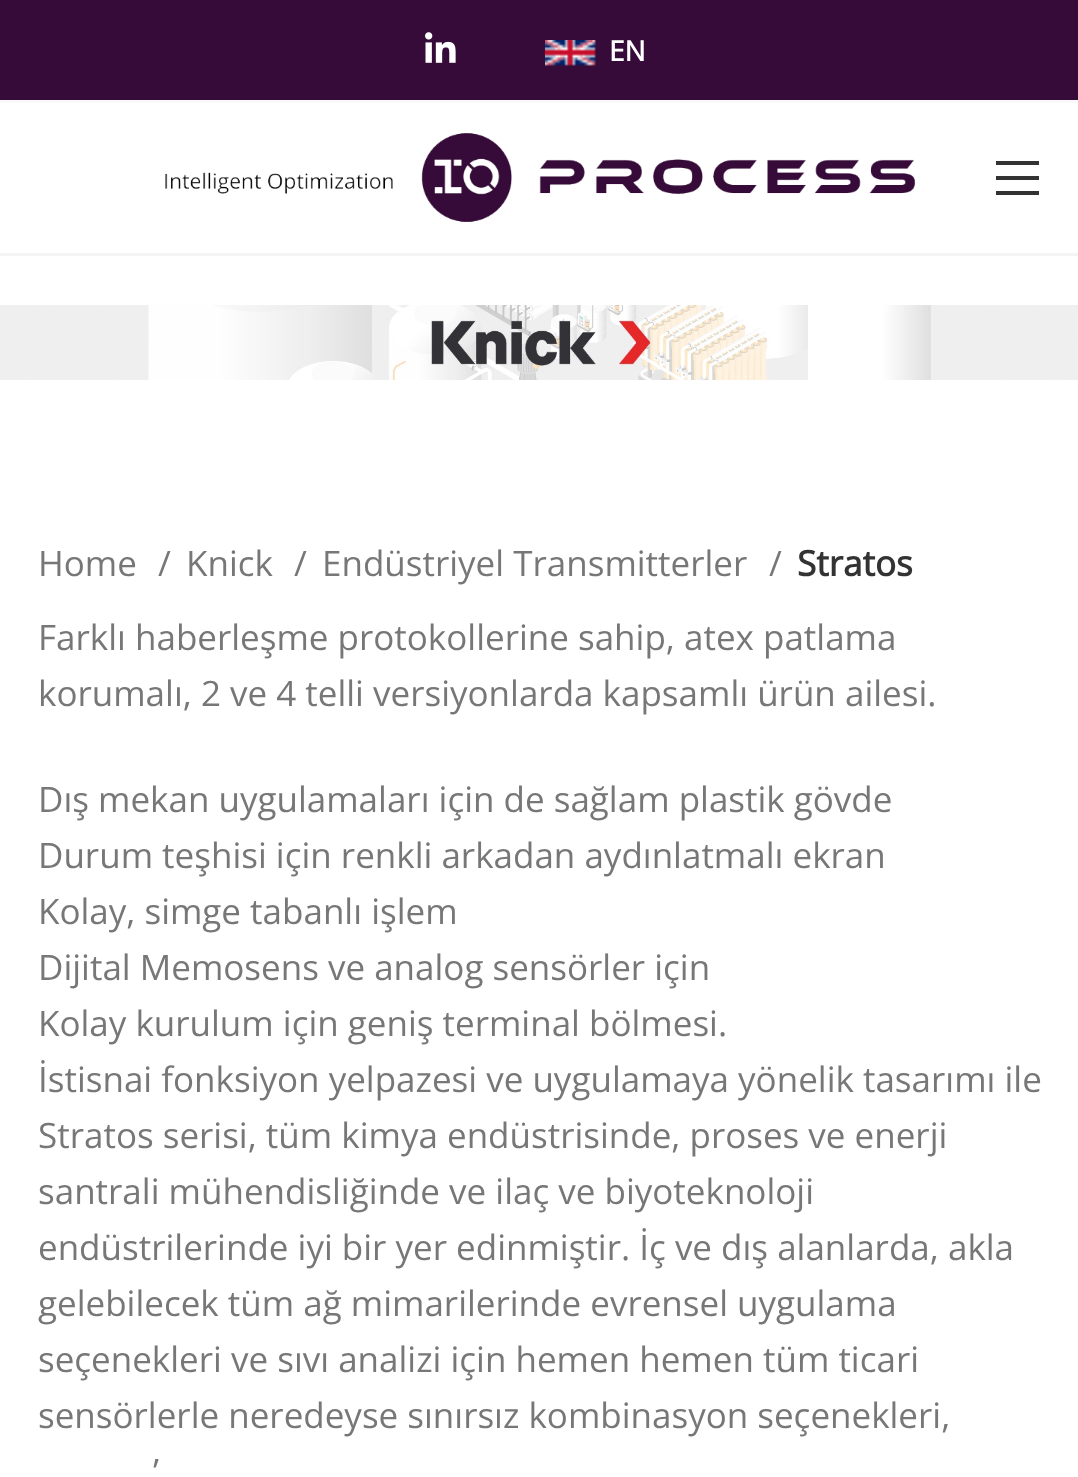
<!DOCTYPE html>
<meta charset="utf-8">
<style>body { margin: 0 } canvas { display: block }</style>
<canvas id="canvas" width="1078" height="1477"></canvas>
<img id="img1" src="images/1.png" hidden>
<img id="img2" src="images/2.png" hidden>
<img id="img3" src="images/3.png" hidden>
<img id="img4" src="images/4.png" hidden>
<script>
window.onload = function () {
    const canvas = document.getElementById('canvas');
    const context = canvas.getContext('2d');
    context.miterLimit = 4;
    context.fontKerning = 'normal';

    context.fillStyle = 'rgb(255, 255, 255)';
    context.fillRect(0, 0, 1078, 1477);
    context.fillStyle = 'rgb(54, 11, 57)';
    context.fillRect(0, 0, 1078, 100);
    context.fillStyle = 'rgb(249, 249, 249)';
    context.fillRect(0, 100, 1078, 3);
    context.drawImage(document.getElementById('img1'), 425, 32, 31, 31);
    context.drawImage(document.getElementById('img2'), 545, 40, 51, 26);
    context.fillStyle = 'rgb(244, 244, 244)';
    context.fillRect(0, 253, 1078, 3);
    context.drawImage(document.getElementById('img3'), 165, 133, 750, 89);
    context.fillStyle = 'rgb(51, 51, 51)';
    context.beginPath();
    context.moveTo(996, 165);
    context.lineTo(1039, 165);
    context.lineTo(1039, 161);
    context.lineTo(996, 161);
    context.closePath();
    context.moveTo(996, 180);
    context.lineTo(1039, 180);
    context.lineTo(1039, 176);
    context.lineTo(996, 176);
    context.closePath();
    context.moveTo(996, 195);
    context.lineTo(1039, 195);
    context.lineTo(1039, 191);
    context.lineTo(996, 191);
    context.closePath();
    context.fill();
    context.drawImage(document.getElementById('img4'), 0, 305, 1078, 75);
    context.font = 'bold 28px Open Sans';
    context.fillStyle = 'rgb(255, 255, 255)';
    context.fillText('EN', 609, 61);
    context.font = '35px Open Sans';
    context.fillStyle = 'rgb(119, 119, 119)';
    context.fillText('Home', 38, 576);
    context.fillText('/', 158, 576);
    context.fillText('Knick', 186, 576);
    context.fillText('/', 294, 576);
    context.fillText('Endüstriyel Transmitterler', 322, 576);
    context.fillText('/', 769, 576);
    context.font = 'bold 35px Open Sans';
    context.fillStyle = 'rgb(51, 51, 51)';
    context.fillText('Stratos', 797, 576);
    context.font = '35px Open Sans';
    context.fillStyle = 'rgb(119, 119, 119)';
    context.fillText('Farklı haberleşme protokollerine sahip, atex patlama', 38, 650);
    context.fillText('korumalı, 2 ve 4 telli versiyonlarda kapsamlı ürün ailesi.', 38, 706);
    context.fillText('Dış mekan uygulamaları için de sağlam plastik gövde', 38, 812);
    context.fillText('Durum teşhisi için renkli arkadan aydınlatmalı ekran', 38, 868);
    context.fillText('Kolay, simge tabanlı işlem', 38, 924);
    context.fillText('Dijital Memosens ve analog sensörler için', 38, 980);
    context.fillText('Kolay kurulum için geniş terminal bölmesi.', 38, 1036);
    context.fillText('İstisnai fonksiyon yelpazesi ve uygulamaya yönelik tasarımı ile', 38, 1092);
    context.fillText('Stratos serisi, tüm kimya endüstrisinde, proses ve enerji', 38, 1148);
    context.fillText('santrali mühendisliğinde ve ilaç ve biyoteknoloji', 38, 1204);
    context.fillText('endüstrilerinde iyi bir yer edinmiştir. İç ve dış alanlarda, akla', 38, 1260);
    context.fillText('gelebilecek tüm ağ mimarilerinde evrensel uygulama', 38, 1316);
    context.fillText('seçenekleri ve sıvı analizi için hemen hemen tüm ticari', 38, 1372);
    context.fillText('sensörlerle neredeyse sınırsız kombinasyon seçenekleri,', 38, 1428);
    context.fillText('’', 153, 1484);
};
</script>
